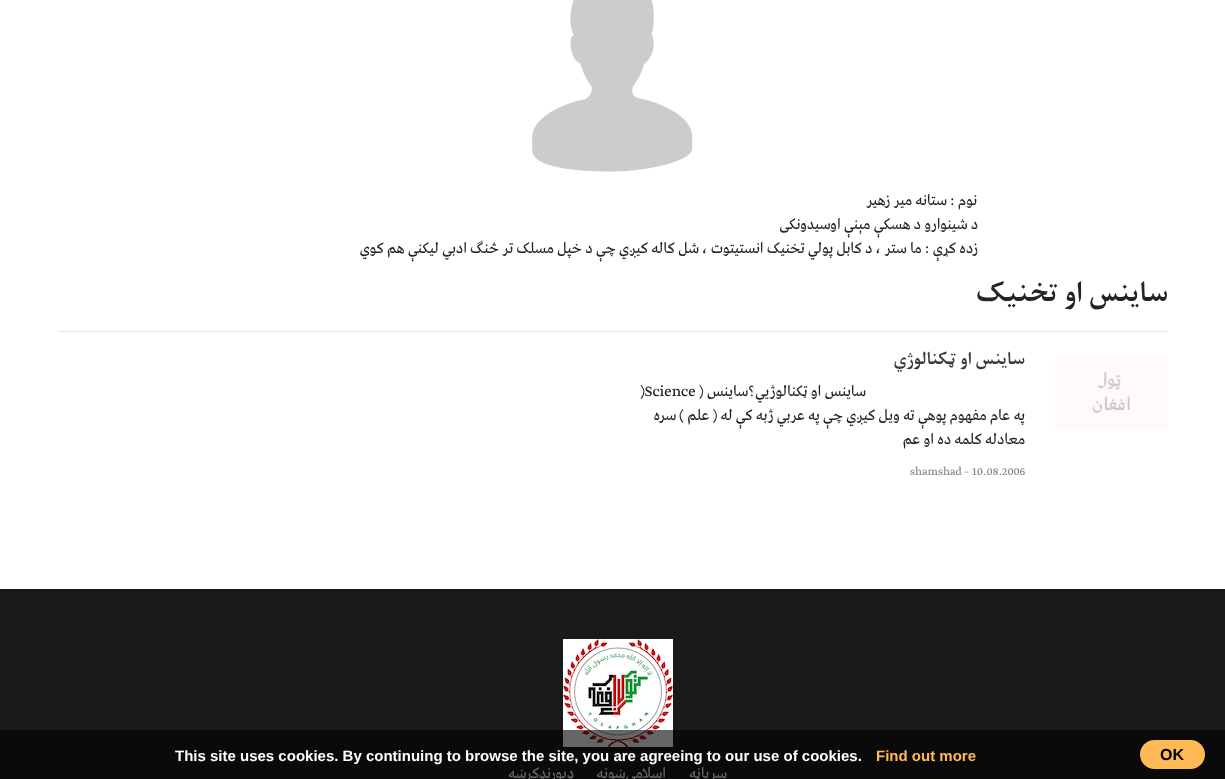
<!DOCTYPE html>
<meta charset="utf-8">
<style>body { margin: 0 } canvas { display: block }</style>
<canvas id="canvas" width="1225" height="779"></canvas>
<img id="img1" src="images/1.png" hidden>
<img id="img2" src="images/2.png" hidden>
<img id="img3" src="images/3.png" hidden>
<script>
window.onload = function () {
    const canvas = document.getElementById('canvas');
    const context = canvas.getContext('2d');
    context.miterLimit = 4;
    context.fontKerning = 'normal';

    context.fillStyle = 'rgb(255, 255, 255)';
    context.fillRect(0, 0, 1225, 779);
    context.drawImage(document.getElementById('img1'), 532, 0, 161, 172);
    context.fillStyle = 'rgb(230, 230, 230)';
    context.fillRect(58, 331, 1110, 1);
    context.drawImage(document.getElementById('img2'), 1055, 358, 113, 72);
    context.fillStyle = 'rgb(26, 26, 26)';
    context.fillRect(0, 589, 1225, 190);
    context.drawImage(document.getElementById('img3'), 563, 639, 110, 108);
    context.direction = 'rtl';
    context.font = '16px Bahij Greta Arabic';
    context.fillStyle = 'rgb(33, 37, 41)';
    context.fillText('نوم : ستانه مير زهير', 977, 205);
    context.fillText('د شينوارو د هسکې مېنې اوسيدونکی', 978, 229);
    context.fillText('زده کړې : ما ستر ، د کابل پولي تخنيک انستيتوت ، شل کاله کيږي چې د خپل مسلک تر څنګ ادبي ليکنې هم کوي', 978, 253);
    context.font = 'bold 32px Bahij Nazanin';
    context.fillText('ساينس او تخنيک', 1168, 301);
    context.font = 'bold 20px Bahij Nazanin';
    context.fillStyle = 'rgb(52, 58, 64)';
    context.fillText('ساينس او ټکنالوژي', 1025, 364);
    context.font = '16px Bahij Greta Arabic';
    context.fillStyle = 'rgb(33, 37, 41)';
    context.fillText('ساينس او ټکنالوژيي؟ساينس (', 866, 396);
    context.direction = 'ltr';
    context.fillText(')Science', 640, 396);
    context.direction = 'rtl';
    context.fillText('په عام مفهوم پوهې ته ويل کيږي چې په عربي ژبه کې له ( علم ) سره', 1025, 420);
    context.fillText('معادله کلمه ده او عم', 1025, 444);
    context.direction = 'ltr';
    context.font = '12px Bahij Greta Arabic';
    context.fillStyle = 'rgb(136, 136, 136)';
    context.fillText('10.08.2006', 972, 475);
    context.fillText('–', 964, 475);
    context.fillText('shamshad', 910, 475);
    context.direction = 'rtl';
    context.font = '16px Bahij Greta Arabic';
    context.fillStyle = 'rgb(255, 255, 255)';
    context.fillText('سرپاڼه', 727, 778);
    context.fillText('اسلامي‌ښونه', 666, 778);
    context.fillText('ډیورنډ‌کرښه', 574, 778);
    context.fillStyle = 'rgba(0, 0, 0, 0.6)';
    context.fillRect(0, 730, 1225, 49);
    context.direction = 'ltr';
    context.font = 'bold 15px Liberation Sans';
    context.fillStyle = 'rgb(255, 186, 85)';
    context.fillText('Find out more', 876, 761);
    context.fillStyle = 'rgb(255, 255, 255)';
    context.fillText('This site uses cookies. By continuing to browse the site, you are agreeing to our use of cookies.', 175, 761);
    context.fillStyle = 'rgb(255, 186, 85)';
    context.beginPath();
    context.roundRect(1140, 740, 65, 29, 14.5);
    context.fill();
    context.font = 'bold 16px Liberation Sans';
    context.fillStyle = 'rgb(0, 0, 0)';
    context.fillText('OK', 1160, 760);
};
</script>
